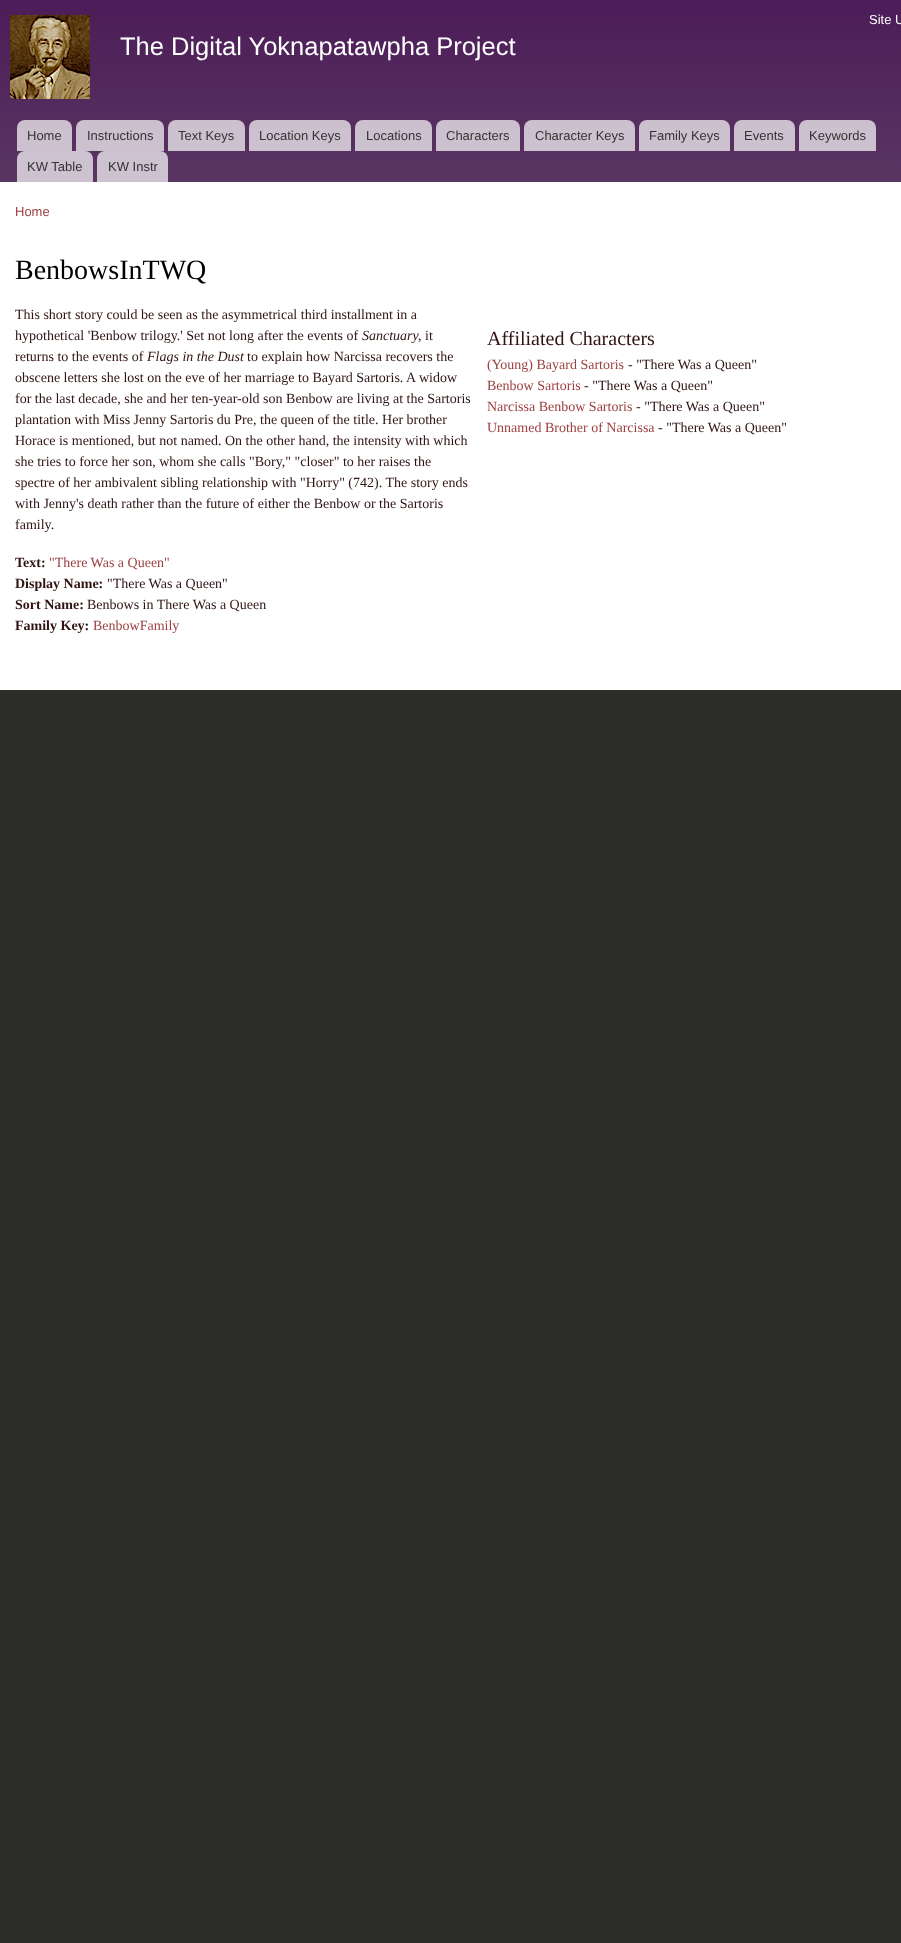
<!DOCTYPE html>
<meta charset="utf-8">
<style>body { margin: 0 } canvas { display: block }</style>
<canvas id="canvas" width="901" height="1943"></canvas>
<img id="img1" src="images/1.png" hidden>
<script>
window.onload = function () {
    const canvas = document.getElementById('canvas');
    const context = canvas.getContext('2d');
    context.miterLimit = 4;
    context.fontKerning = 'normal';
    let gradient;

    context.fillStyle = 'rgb(44, 44, 40)';
    context.fillRect(0, 0, 901, 1943);
    context.fillStyle = 'rgb(255, 255, 255)';
    context.fillRect(0, 182, 901, 508);
    gradient = context.createLinearGradient(480, 0, 480, 182);
    gradient.addColorStop(0, 'rgb(76, 28, 88)');
    gradient.addColorStop(1, 'rgb(89, 54, 98)');
    context.fillStyle = gradient;
    context.fillRect(0, 0, 901, 182);
    context.drawImage(document.getElementById('img1'), 10, 15, 80, 84);
    context.fillStyle = 'rgba(255, 255, 255, 0.7)';
    context.beginPath();
    context.roundRect(17, 120, 55, 31, [8, 8, 0, 0]);
    context.fill();
    context.beginPath();
    context.roundRect(76, 120, 88, 31, [8, 8, 0, 0]);
    context.fill();
    context.beginPath();
    context.roundRect(168, 120, 77, 31, [8, 8, 0, 0]);
    context.fill();
    context.beginPath();
    context.roundRect(249, 120, 102, 31, [8, 8, 0, 0]);
    context.fill();
    context.beginPath();
    context.roundRect(355, 120, 77, 31, [8, 8, 0, 0]);
    context.fill();
    context.beginPath();
    context.roundRect(436, 120, 84, 31, [8, 8, 0, 0]);
    context.fill();
    context.beginPath();
    context.roundRect(524, 120, 111, 31, [8, 8, 0, 0]);
    context.fill();
    context.beginPath();
    context.roundRect(639, 120, 91, 31, [8, 8, 0, 0]);
    context.fill();
    context.beginPath();
    context.roundRect(734, 120, 61, 31, [8, 8, 0, 0]);
    context.fill();
    context.beginPath();
    context.roundRect(799, 120, 77, 31, [8, 8, 0, 0]);
    context.fill();
    context.beginPath();
    context.roundRect(17, 151, 76, 31, [8, 8, 0, 0]);
    context.fill();
    context.beginPath();
    context.roundRect(97, 151, 71, 31, [8, 8, 0, 0]);
    context.fill();
    context.font = '25.5px Liberation Sans';
    context.fillStyle = 'rgb(255, 255, 255)';
    context.fillText('The Digital Yoknapatawpha Project', 120, 55);
    context.font = '13px Liberation Sans';
    context.fillText('Site U', 869, 24);
    context.fillStyle = 'rgb(51, 51, 51)';
    context.fillText('Home', 27, 140);
    context.fillText('Instructions', 87, 140);
    context.fillText('Text Keys', 178, 140);
    context.fillText('Location Keys', 259, 140);
    context.fillText('Locations', 366, 140);
    context.fillText('Characters', 446, 140);
    context.fillText('Character Keys', 535, 140);
    context.fillText('Family Keys', 649, 140);
    context.fillText('Events', 744, 140);
    context.fillText('Keywords', 809, 140);
    context.fillText('KW Table', 27, 171);
    context.fillText('KW Instr', 108, 171);
    context.fillStyle = 'rgb(157, 64, 64)';
    context.fillText('Home', 15, 216);
    context.font = '28px Liberation Serif';
    context.fillStyle = 'rgb(0, 0, 0)';
    context.fillText('BenbowsInTWQ', 15, 279);
    context.font = '14px Liberation Serif';
    context.fillStyle = 'rgb(48, 19, 19)';
    context.fillText('This short story could be seen as the asymmetrical third installment in a', 15, 319);
    context.fillText('hypothetical \'Benbow trilogy.\' Set not long after the events of', 15, 340);
    context.font = 'italic 14px Liberation Serif';
    context.fillText('Sanctuary', 362, 340);
    context.font = '14px Liberation Serif';
    context.fillText(', it', 418, 340);
    context.fillText('returns to the events of', 15, 361);
    context.font = 'italic 14px Liberation Serif';
    context.fillText('Flags in the Dust', 147, 361);
    context.font = '14px Liberation Serif';
    context.fillText('to explain how Narcissa recovers the', 247, 361);
    context.fillText('obscene letters she lost on the eve of her marriage to Bayard Sartoris. A widow', 15, 382);
    context.fillText('for the last decade, she and her ten-year-old son Benbow are living at the Sartoris', 15, 403);
    context.fillText('plantation with Miss Jenny Sartoris du Pre, the queen of the title. Her brother', 15, 424);
    context.fillText('Horace is mentioned, but not named. On the other hand, the intensity with which', 15, 445);
    context.fillText('she tries to force her son, whom she calls "Bory," "closer" to her raises the', 15, 466);
    context.fillText('spectre of her ambivalent sibling relationship with "Horry" (742). The story ends', 15, 487);
    context.fillText('with Jenny\'s death rather than the future of either the Benbow or the Sartoris', 15, 508);
    context.fillText('family.', 15, 529);
    context.font = 'bold 14px Liberation Serif';
    context.fillText('Text:', 15, 567);
    context.font = '14px Liberation Serif';
    context.fillStyle = 'rgb(157, 64, 64)';
    context.fillText('"There Was a Queen"', 49, 567);
    context.font = 'bold 14px Liberation Serif';
    context.fillStyle = 'rgb(48, 19, 19)';
    context.fillText('Display Name:', 15, 588);
    context.font = '14px Liberation Serif';
    context.fillText('"There Was a Queen"', 107, 588);
    context.font = 'bold 14px Liberation Serif';
    context.fillText('Sort Name:', 15, 609);
    context.font = '14px Liberation Serif';
    context.fillText('Benbows in There Was a Queen', 87, 609);
    context.font = 'bold 14px Liberation Serif';
    context.fillText('Family Key:', 15, 630);
    context.font = '14px Liberation Serif';
    context.fillStyle = 'rgb(157, 64, 64)';
    context.fillText('BenbowFamily', 93, 630);
    context.font = '20px Liberation Serif';
    context.fillStyle = 'rgb(48, 19, 19)';
    context.fillText('Affiliated Characters', 487, 345);
    context.font = '14px Liberation Serif';
    context.fillStyle = 'rgb(157, 64, 64)';
    context.fillText('(Young) Bayard Sartoris', 487, 369);
    context.fillStyle = 'rgb(48, 19, 19)';
    context.fillText('- "There Was a Queen"', 628, 369);
    context.fillStyle = 'rgb(157, 64, 64)';
    context.fillText('Benbow Sartoris', 487, 390);
    context.fillStyle = 'rgb(48, 19, 19)';
    context.fillText('- "There Was a Queen"', 584, 390);
    context.fillStyle = 'rgb(157, 64, 64)';
    context.fillText('Narcissa Benbow Sartoris', 487, 411);
    context.fillStyle = 'rgb(48, 19, 19)';
    context.fillText('- "There Was a Queen"', 636, 411);
    context.fillStyle = 'rgb(157, 64, 64)';
    context.fillText('Unnamed Brother of Narcissa', 487, 432);
    context.fillStyle = 'rgb(48, 19, 19)';
    context.fillText('- "There Was a Queen"', 658, 432);
};
</script>
